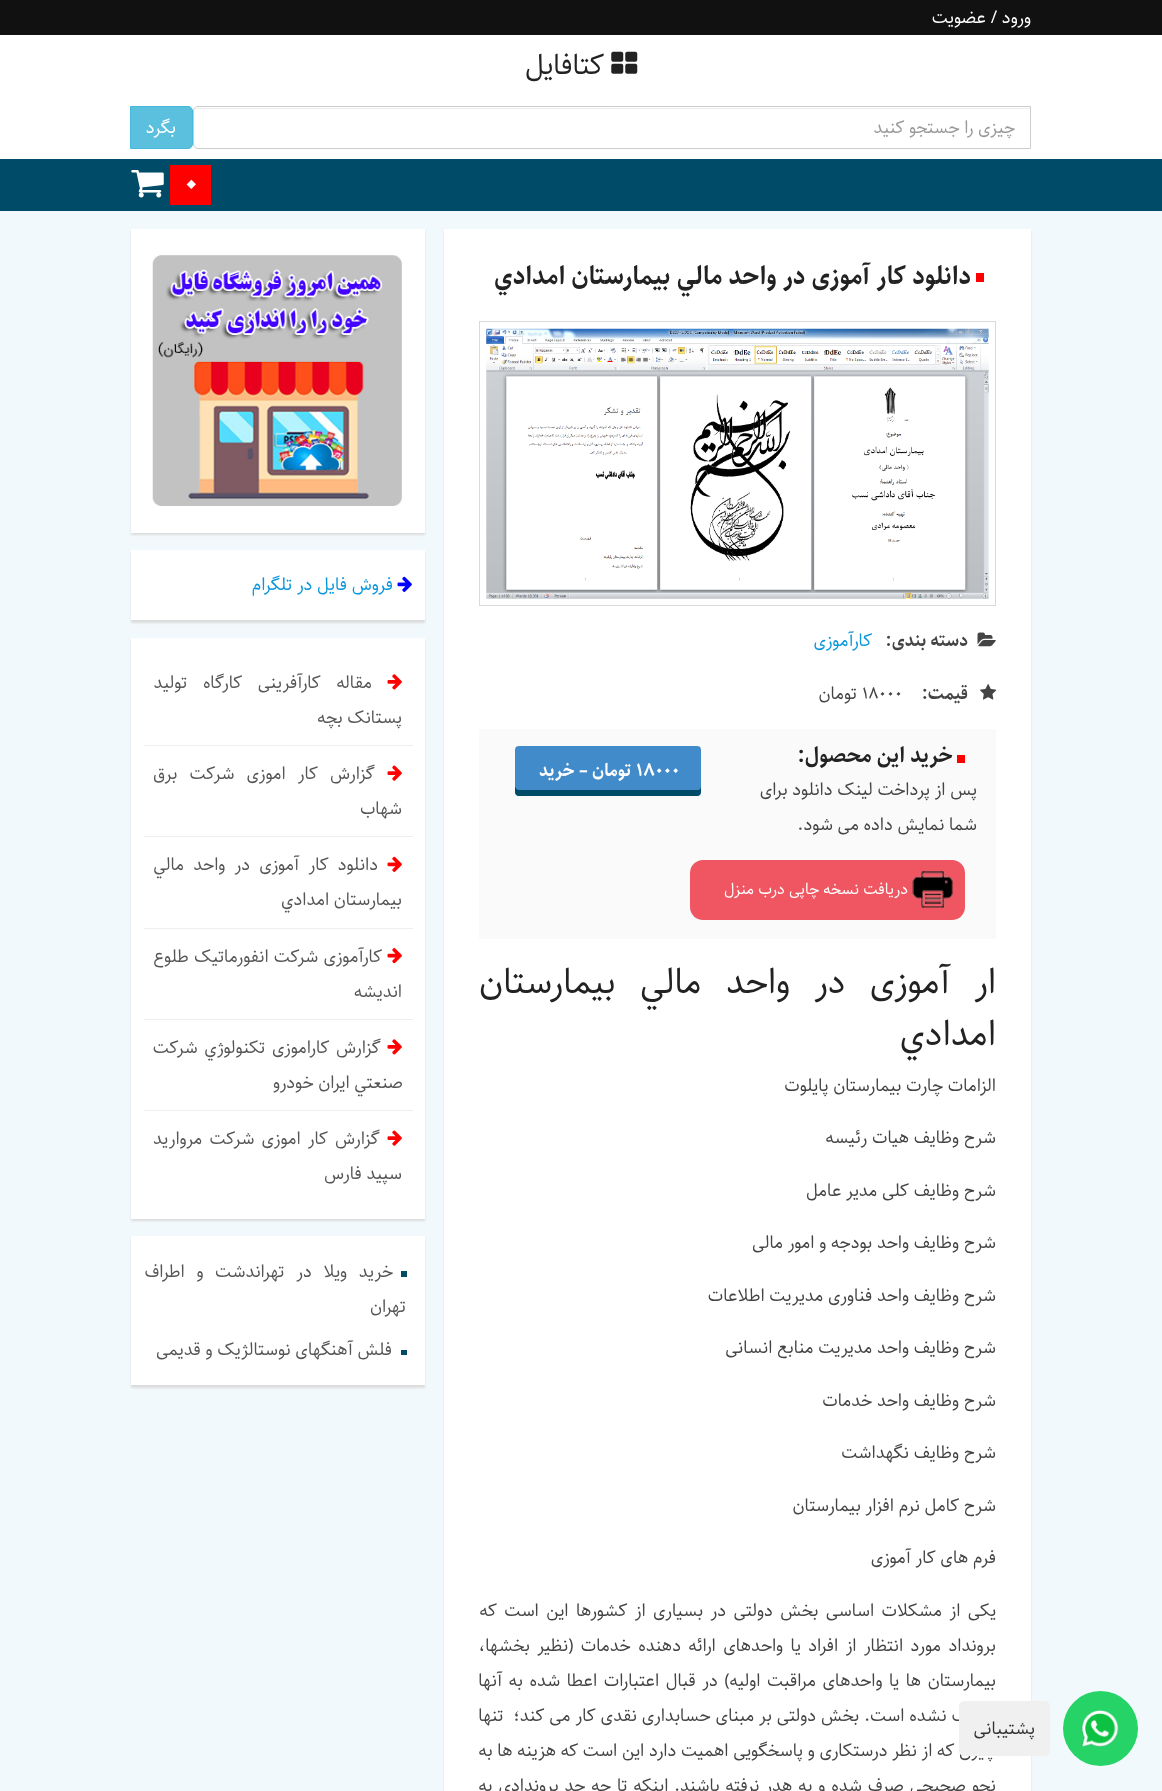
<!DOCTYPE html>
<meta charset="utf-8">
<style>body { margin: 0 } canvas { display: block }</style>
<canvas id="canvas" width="1162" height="1791"></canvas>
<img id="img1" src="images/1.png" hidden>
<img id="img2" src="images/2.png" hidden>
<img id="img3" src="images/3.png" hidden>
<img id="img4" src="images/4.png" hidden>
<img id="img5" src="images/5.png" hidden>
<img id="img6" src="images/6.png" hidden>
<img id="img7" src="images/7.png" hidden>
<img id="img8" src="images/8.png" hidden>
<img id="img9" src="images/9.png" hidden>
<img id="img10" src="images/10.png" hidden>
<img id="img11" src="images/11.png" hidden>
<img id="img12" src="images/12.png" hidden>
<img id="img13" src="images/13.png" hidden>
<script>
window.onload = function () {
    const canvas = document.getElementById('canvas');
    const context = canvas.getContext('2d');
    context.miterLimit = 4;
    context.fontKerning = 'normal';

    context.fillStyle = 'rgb(242, 249, 253)';
    context.fillRect(0, 0, 1162, 1791);
    context.fillStyle = 'rgb(17, 17, 17)';
    context.fillRect(0, 0, 1162, 35);
    context.fillStyle = 'rgb(255, 255, 255)';
    context.fillRect(0, 35, 1162, 124);
    context.drawImage(document.getElementById('img1'), 611, 51, 27, 23);
    context.fillStyle = 'rgb(236, 236, 236)';
    context.beginPath();
    context.moveTo(198, 109);
    context.lineTo(1030, 109);
    context.lineTo(1030, 108);
    context.lineTo(198, 108);
    context.bezierCurveTo(196, 108, 195, 109, 194, 110);
    context.bezierCurveTo(195, 109, 196, 109, 198, 109);
    context.closePath();
    context.fill();
    context.beginPath();
    context.roundRect(193.5, 106.5, 837, 42, [4.5, 0, 0, 4.5]);
    context.strokeStyle = 'rgb(204, 204, 204)';
    context.stroke();
    context.fillStyle = 'rgb(91, 192, 222)';
    context.beginPath();
    context.roundRect(130.5, 106.5, 62, 42, [0, 4.5, 4.5, 0]);
    context.fill();
    context.strokeStyle = 'rgb(70, 184, 218)';
    context.stroke();
    context.fillStyle = 'rgb(0, 75, 103)';
    context.fillRect(0, 159, 1162, 52);
    context.fillStyle = 'rgb(255, 0, 0)';
    context.fillRect(170, 165, 41, 40);
    context.drawImage(document.getElementById('img2'), 131, 170, 33, 28);
    context.fillStyle = 'rgb(37, 211, 102)';
    context.beginPath();
    context.arc(1100.5, 1728.5, 37.5, 0, 2 * Math.PI);
    context.fill();
    context.drawImage(document.getElementById('img3'), 1081, 1710, 38, 37);
    context.fillStyle = 'rgb(219, 219, 219)';
    context.filter = 'blur(1px)';
    context.beginPath();
    context.rect(444, 231, 587, 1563);
    context.fill();
    context.filter = 'none';
    context.fillStyle = 'rgb(255, 255, 255)';
    context.fillRect(444, 229, 587, 1562);
    context.fillStyle = 'rgb(255, 0, 0)';
    context.fillRect(976, 273, 8, 9);
    context.strokeStyle = 'rgb(217, 217, 217)';
    context.strokeRect(479.5, 321.5, 516, 284);
    context.drawImage(document.getElementById('img4'), 486, 328, 503, 271);
    context.drawImage(document.getElementById('img5'), 977, 632, 19, 15);
    context.drawImage(document.getElementById('img6'), 980, 684, 17, 16);
    context.fillStyle = 'rgb(250, 250, 250)';
    context.fillRect(479, 729, 517, 210);
    context.fillStyle = 'rgb(255, 0, 0)';
    context.fillRect(957, 755, 8, 8);
    context.fillStyle = 'rgb(239, 86, 98)';
    context.beginPath();
    context.roundRect(690, 860, 275, 60, 13);
    context.fill();
    context.drawImage(document.getElementById('img7'), 912, 871, 41, 37);
    context.fillStyle = 'rgb(66, 139, 202)';
    context.beginPath();
    context.roundRect(515, 746, 186, 50, 4);
    context.fill();
    context.fillStyle = 'rgb(0, 75, 103)';
    context.beginPath();
    context.moveTo(515, 786);
    context.lineTo(515, 792);
    context.bezierCurveTo(515, 794, 517, 796, 519, 796);
    context.lineTo(697, 796);
    context.bezierCurveTo(699, 796, 701, 794, 701, 792);
    context.lineTo(701, 786);
    context.bezierCurveTo(701, 788, 700, 790, 698, 790);
    context.lineTo(519, 790);
    context.bezierCurveTo(517, 790, 515, 788, 515, 786);
    context.closePath();
    context.fill();
    context.fillStyle = 'rgb(219, 219, 219)';
    context.filter = 'blur(1px)';
    context.beginPath();
    context.rect(131, 231, 294, 304);
    context.fill();
    context.filter = 'none';
    context.fillStyle = 'rgb(255, 255, 255)';
    context.fillRect(131, 229, 294, 304);
    context.drawImage(document.getElementById('img8'), 152, 255, 250, 251);
    context.fillStyle = 'rgb(219, 219, 219)';
    context.filter = 'blur(1px)';
    context.beginPath();
    context.rect(131, 553, 294, 70);
    context.fill();
    context.filter = 'none';
    context.fillStyle = 'rgb(255, 255, 255)';
    context.fillRect(131, 550, 294, 70);
    context.drawImage(document.getElementById('img9'), 397, 576, 15, 16);
    context.fillStyle = 'rgb(219, 219, 219)';
    context.filter = 'blur(1px)';
    context.beginPath();
    context.rect(131, 640, 294, 581);
    context.fill();
    context.filter = 'none';
    context.fillStyle = 'rgb(255, 255, 255)';
    context.fillRect(131, 638, 294, 581);
    context.fillStyle = 'rgb(238, 238, 238)';
    context.fillRect(144, 745, 269, 1);
    context.drawImage(document.getElementById('img10'), 387, 674, 15, 16);
    context.fillRect(144, 836, 269, 1);
    context.drawImage(document.getElementById('img11'), 387, 765, 15, 16);
    context.fillRect(144, 928, 269, 1);
    context.drawImage(document.getElementById('img12'), 387, 856, 15, 16);
    context.fillRect(144, 1019, 269, 1);
    context.drawImage(document.getElementById('img13'), 387, 948, 15, 16);
    context.fillRect(144, 1110, 269, 1);
    context.drawImage(document.getElementById('img10'), 387, 1039, 15, 16);
    context.drawImage(document.getElementById('img11'), 387, 1130, 15, 16);
    context.fillStyle = 'rgb(219, 219, 219)';
    context.filter = 'blur(1px)';
    context.beginPath();
    context.rect(131, 1239, 294, 149);
    context.fill();
    context.filter = 'none';
    context.fillStyle = 'rgb(255, 255, 255)';
    context.fillRect(131, 1236, 294, 149);
    context.fillStyle = 'rgb(0, 75, 103)';
    context.fillRect(401, 1271, 6, 6);
    context.fillRect(401, 1350, 6, 5);
    context.direction = 'rtl';
    context.font = '17.5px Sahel';
    context.fillStyle = 'rgb(255, 255, 255)';
    context.fillText('ورود / عضویت', 1031, 23);
    context.font = '28px Sahel';
    context.fillStyle = 'rgb(34, 34, 34)';
    context.fillText('کتافایل', 604, 74);
    context.font = '17.5px Sahel';
    context.fillStyle = 'rgb(153, 153, 153)';
    context.fillText('چیزی را جستجو کنید', 1015, 133);
    context.fillStyle = 'rgb(255, 255, 255)';
    context.fillText('بگرد', 176, 133);
    context.direction = 'ltr';
    context.font = 'bold 35px Sahel';
    context.fillText('0', 183, 195);
    context.direction = 'rtl';
    context.font = 'bold 25px Sahel';
    context.fillStyle = 'rgb(34, 34, 34)';
    context.fillText('دانلود کار آموزی در واحد مالي بيمارستان امدادي', 971, 284);
    context.font = 'bold 17.5px Sahel';
    context.fillStyle = 'rgb(68, 68, 68)';
    context.fillText('دسته بندی:', 968, 646);
    context.font = '17.5px Sahel';
    context.fillStyle = 'rgb(9, 150, 220)';
    context.fillText('کارآموزی', 872, 646);
    context.font = 'bold 17.5px Sahel';
    context.fillStyle = 'rgb(68, 68, 68)';
    context.fillText('قیمت:', 968, 699);
    context.direction = 'ltr';
    context.font = '17.5px Sahel';
    context.fillText('18000', 862, 699);
    context.direction = 'rtl';
    context.fillText('تومان', 857, 699);
    context.font = 'bold 21px Sahel';
    context.fillStyle = 'rgb(34, 34, 34)';
    context.fillText('خرید این محصول:', 953, 762);
    context.font = '17.5px Sahel';
    context.fillStyle = 'rgb(68, 68, 68)';
    context.fillText('پس از پرداخت لینک دانلود برای', 977, 795);
    context.fillText('شما نمایش داده می شود.', 977, 830);
    context.font = '15.6px Sahel';
    context.fillStyle = 'rgb(255, 255, 255)';
    context.fillText('دریافت نسخه چاپی درب منزل', 908, 894);
    context.direction = 'ltr';
    context.font = 'bold 17.5px Sahel';
    context.fillText('18000', 636, 776);
    context.direction = 'rtl';
    context.fillText('تومان – خرید', 631, 776);
    context.wordSpacing = '15px';
    context.font = '35px Sahel';
    context.fillStyle = 'rgb(34, 34, 34)';
    context.fillText('ار آموزی در واحد مالي بيمارستان', 996, 993);
    context.wordSpacing = '0px';
    context.fillText('امدادي', 996, 1045);
    context.font = '17.5px Sahel';
    context.fillStyle = 'rgb(68, 68, 68)';
    context.fillText('الزامات چارت بیمارستان پایلوت', 996, 1091);
    context.fillText('شرح وظایف هیات رئیسه', 996, 1143);
    context.fillText('شرح وظایف کلی مدیر عامل', 996, 1196);
    context.fillText('شرح وظایف واحد بودجه و امور مالی', 996, 1248);
    context.fillText('شرح وظایف واحد فناوری مدیریت اطلاعات', 996, 1301);
    context.fillText('شرح وظایف واحد مدیریت منابع انسانی', 996, 1353);
    context.fillText('شرح وظایف واحد خدمات', 996, 1406);
    context.fillText('شرح وظایف نگهداشت', 996, 1458);
    context.fillText('شرح کامل نرم افزار بیمارستان', 996, 1511);
    context.fillText('فرم های کار آموزی', 996, 1563);
    context.wordSpacing = '2.75px';
    context.fillText('یکی از مشکلات اساسی بخش دولتی در بسیاری از کشورها این است که', 996, 1616);
    context.fillText('برونداد مورد انتظار از افراد یا واحدهای ارائه دهنده خدمات (نظیر بخشها،', 996, 1651);
    context.wordSpacing = '1.9px';
    context.fillText('بیمارستان ها یا واحدهای مراقبت اولیه) در قبال اعتبارات اعطا شده به آنها', 996, 1686);
    context.wordSpacing = '0.25px';
    context.fillText('تعریف نشده است. بخش دولتی بر مبنای حسابداری نقدی کار می کند؛  تنها', 996, 1721);
    context.wordSpacing = '0px';
    context.fillText('چیزی که از نظر درستکاری و پاسخگویی اهمیت دارد این است که هزینه ها به', 996, 1756);
    context.fillStyle = 'rgb(240, 240, 240)';
    context.beginPath();
    context.roundRect(959, 1701, 91, 55, 5);
    context.fill();
    context.fillStyle = 'rgb(51, 51, 51)';
    context.fillText('پشتیبانی', 1035, 1734);
    context.wordSpacing = '1.25px';
    context.fillStyle = 'rgb(68, 68, 68)';
    context.fillText('نحو صحیحی صرف شده و به هدر نرفته باشند. اینکه تا چه حد بروندادی به', 996, 1791);
    context.wordSpacing = '0px';
    context.fillStyle = 'rgb(9, 150, 220)';
    context.fillText('فروش فایل در تلگرام', 393, 590);
    context.wordSpacing = '11px';
    context.fillStyle = 'rgb(85, 85, 85)';
    context.fillText('مقاله کارآفرینی کارگاه تولید', 372, 688);
    context.wordSpacing = '0px';
    context.fillText('پستانک بچه', 402, 723);
    context.wordSpacing = '7.5px';
    context.fillText('گزارش کار اموزی شركت برق', 375, 779);
    context.wordSpacing = '0px';
    context.fillText('شهاب', 402, 814);
    context.wordSpacing = '4.5px';
    context.fillText('دانلود کار آموزی در واحد مالي', 378, 870);
    context.wordSpacing = '0px';
    context.fillText('بيمارستان امدادي', 402, 905);
    context.wordSpacing = '0.5px';
    context.fillText('کارآموزی شرکت انفورماتیک طلوع', 382, 962);
    context.wordSpacing = '0px';
    context.fillText('اندیشه', 402, 997);
    context.wordSpacing = '2px';
    context.fillText('گزارش کاراموزی تكنولوژي شركت', 381, 1053);
    context.wordSpacing = '0px';
    context.fillText('صنعتي ايران خودرو', 403, 1088);
    context.wordSpacing = '2.5px';
    context.fillText('گزارش کار اموزی شركت مرواريد', 380, 1144);
    context.wordSpacing = '0px';
    context.fillText('سپيد فارس', 402, 1179);
    context.wordSpacing = '7px';
    context.fillText('خرید ویلا در تهراندشت و اطراف', 393, 1277);
    context.wordSpacing = '0px';
    context.fillText('تهران', 406, 1312);
    context.fillText('فلش آهنگهای نوستالژیک و قدیمی', 392, 1355);
};
</script>
